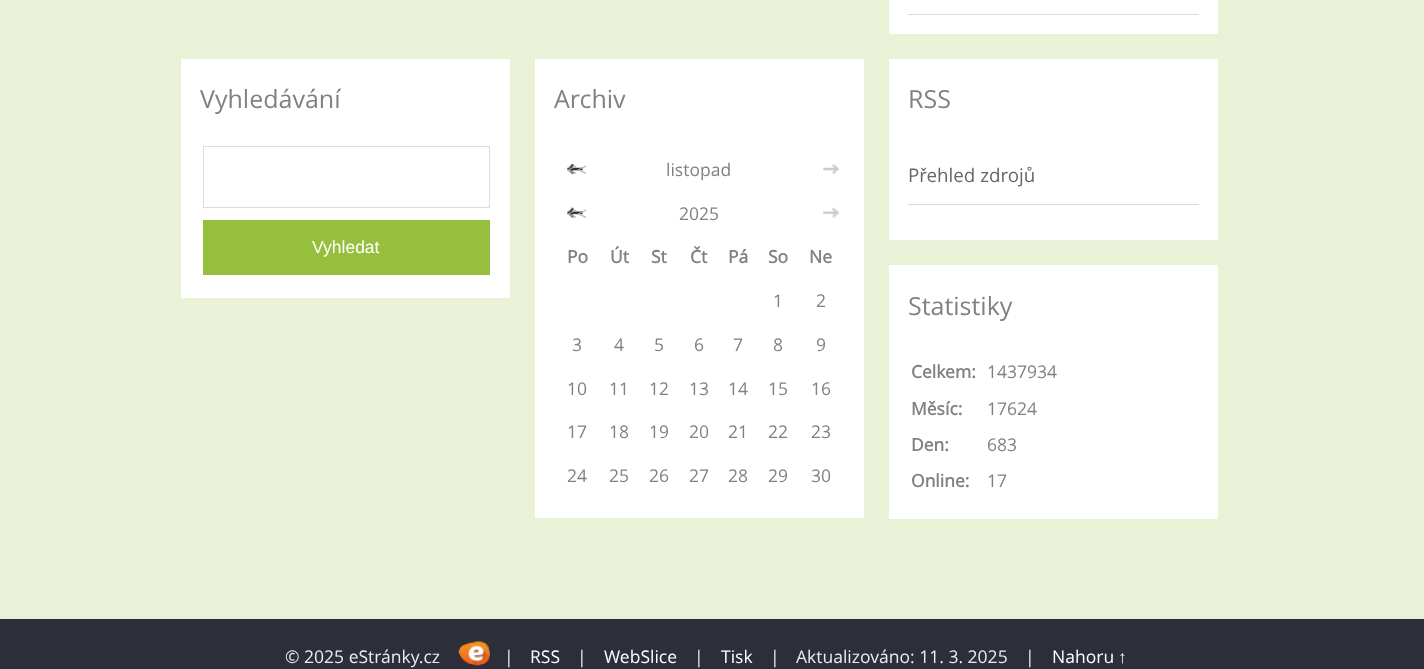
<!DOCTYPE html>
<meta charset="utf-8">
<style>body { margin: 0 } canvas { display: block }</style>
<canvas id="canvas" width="1424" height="669"></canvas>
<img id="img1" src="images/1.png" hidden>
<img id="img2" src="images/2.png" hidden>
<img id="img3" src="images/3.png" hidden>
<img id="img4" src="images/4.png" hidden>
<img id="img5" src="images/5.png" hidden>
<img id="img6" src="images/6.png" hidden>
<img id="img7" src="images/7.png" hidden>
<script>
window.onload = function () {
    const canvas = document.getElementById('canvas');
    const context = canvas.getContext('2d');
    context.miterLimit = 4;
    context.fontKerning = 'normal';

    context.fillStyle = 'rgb(233, 242, 215)';
    context.fillRect(0, 0, 1424, 669);
    context.fillStyle = 'rgb(255, 255, 255)';
    context.fillRect(889, 0, 329, 34);
    context.fillStyle = 'rgb(214, 221, 227)';
    context.fillRect(908, 14, 291, 1);
    context.fillStyle = 'rgb(255, 255, 255)';
    context.fillRect(181, 59, 329, 239);
    context.strokeStyle = 'rgb(214, 221, 227)';
    context.strokeRect(203.5, 146.5, 286, 61);
    context.fillStyle = 'rgb(150, 191, 61)';
    context.fillRect(203, 220, 287, 55);
    context.fillStyle = 'rgb(255, 255, 255)';
    context.fillRect(535, 59, 329, 459);
    context.drawImage(document.getElementById('img1'), 567, 164, 1, 10);
    context.drawImage(document.getElementById('img2'), 567, 164, 16, 11);
    context.drawImage(document.getElementById('img3'), 823, 164, 16, 10);
    context.drawImage(document.getElementById('img4'), 567, 207, 16, 11);
    context.drawImage(document.getElementById('img5'), 567, 207, 16, 11);
    context.drawImage(document.getElementById('img6'), 823, 207, 16, 11);
    context.fillRect(889, 59, 329, 181);
    context.fillStyle = 'rgb(214, 221, 227)';
    context.fillRect(908, 204, 291, 1);
    context.fillStyle = 'rgb(255, 255, 255)';
    context.fillRect(889, 265, 329, 254);
    context.fillStyle = 'rgb(44, 46, 58)';
    context.fillRect(0, 619, 1424, 50);
    context.drawImage(document.getElementById('img7'), 458, 641, 32, 25);
    context.font = '25px Open Sans';
    context.fillStyle = 'rgb(129, 129, 129)';
    context.fillText('Vyhledávání', 200, 108);
    context.font = '17.5px Liberation Sans';
    context.fillStyle = 'rgb(255, 255, 255)';
    context.fillText('Vyhledat', 312, 253);
    context.font = '25px Open Sans';
    context.fillStyle = 'rgb(129, 129, 129)';
    context.fillText('Archiv', 554, 108);
    context.font = '17.5px Open Sans';
    context.fillStyle = 'rgb(177, 177, 177)';
    context.fillText('<<', 567, 176);
    context.fillStyle = 'rgb(129, 129, 129)';
    context.fillText('listopad', 666, 176);
    context.fillStyle = 'rgb(177, 177, 177)';
    context.fillText('<<', 567, 220);
    context.fillStyle = 'rgb(129, 129, 129)';
    context.fillText('2025', 679, 220);
    context.font = 'bold 17.5px Open Sans';
    context.fillText('Po', 567, 263);
    context.fillText('Út', 610, 263);
    context.fillText('St', 651, 263);
    context.fillText('Čt', 690, 263);
    context.fillText('Pá', 728, 263);
    context.fillText('So', 768, 263);
    context.fillText('Ne', 809, 263);
    context.font = '17.5px Open Sans';
    context.fillText('1', 773, 307);
    context.fillText('2', 816, 307);
    context.fillText('3', 572, 351);
    context.fillText('4', 614, 351);
    context.fillText('5', 654, 351);
    context.fillText('6', 694, 351);
    context.fillText('7', 733, 351);
    context.fillText('8', 773, 351);
    context.fillText('9', 816, 351);
    context.fillText('10', 567, 395);
    context.fillText('11', 609, 395);
    context.fillText('12', 649, 395);
    context.fillText('13', 689, 395);
    context.fillText('14', 728, 395);
    context.fillText('15', 768, 395);
    context.fillText('16', 811, 395);
    context.fillText('17', 567, 438);
    context.fillText('18', 609, 438);
    context.fillText('19', 649, 438);
    context.fillText('20', 689, 438);
    context.fillText('21', 728, 438);
    context.fillText('22', 768, 438);
    context.fillText('23', 811, 438);
    context.fillText('24', 567, 482);
    context.fillText('25', 609, 482);
    context.fillText('26', 649, 482);
    context.fillText('27', 689, 482);
    context.fillText('28', 728, 482);
    context.fillText('29', 768, 482);
    context.fillText('30', 811, 482);
    context.font = '25px Open Sans';
    context.fillText('RSS', 908, 108);
    context.font = '18.75px Open Sans';
    context.fillStyle = 'rgb(102, 102, 102)';
    context.fillText('Přehled zdrojů', 908, 182);
    context.font = '25px Open Sans';
    context.fillStyle = 'rgb(129, 129, 129)';
    context.fillText('Statistiky', 908, 315);
    context.font = 'bold 17.5px Open Sans';
    context.fillText('Celkem:', 911, 378);
    context.font = '17.5px Open Sans';
    context.fillText('1437934', 987, 378);
    context.font = 'bold 17.5px Open Sans';
    context.fillText('Měsíc:', 911, 415);
    context.font = '17.5px Open Sans';
    context.fillText('17624', 987, 415);
    context.font = 'bold 17.5px Open Sans';
    context.fillText('Den:', 911, 451);
    context.font = '17.5px Open Sans';
    context.fillText('683', 987, 451);
    context.font = 'bold 17.5px Open Sans';
    context.fillText('Online:', 911, 487);
    context.font = '17.5px Open Sans';
    context.fillText('17', 987, 487);
    context.fillStyle = 'rgb(232, 236, 239)';
    context.fillText('© 2025 eStránky.cz', 285, 663);
    context.fillText('|', 504, 663);
    context.fillStyle = 'rgb(255, 255, 255)';
    context.fillText('RSS', 530, 663);
    context.fillStyle = 'rgb(232, 236, 239)';
    context.fillText('|', 577, 663);
    context.fillStyle = 'rgb(255, 255, 255)';
    context.fillText('WebSlice', 604, 663);
    context.fillStyle = 'rgb(232, 236, 239)';
    context.fillText('|', 694, 663);
    context.fillStyle = 'rgb(255, 255, 255)';
    context.fillText('Tisk', 721, 663);
    context.fillStyle = 'rgb(232, 236, 239)';
    context.fillText('|', 770, 663);
    context.fillText('Aktualizováno: 11. 3. 2025', 796, 663);
    context.fillText('|', 1025, 663);
    context.fillStyle = 'rgb(255, 255, 255)';
    context.fillText('Nahoru', 1052, 663);
    context.font = '17.5px Liberation Sans';
    context.fillText('↑', 1118, 663);
};
</script>
